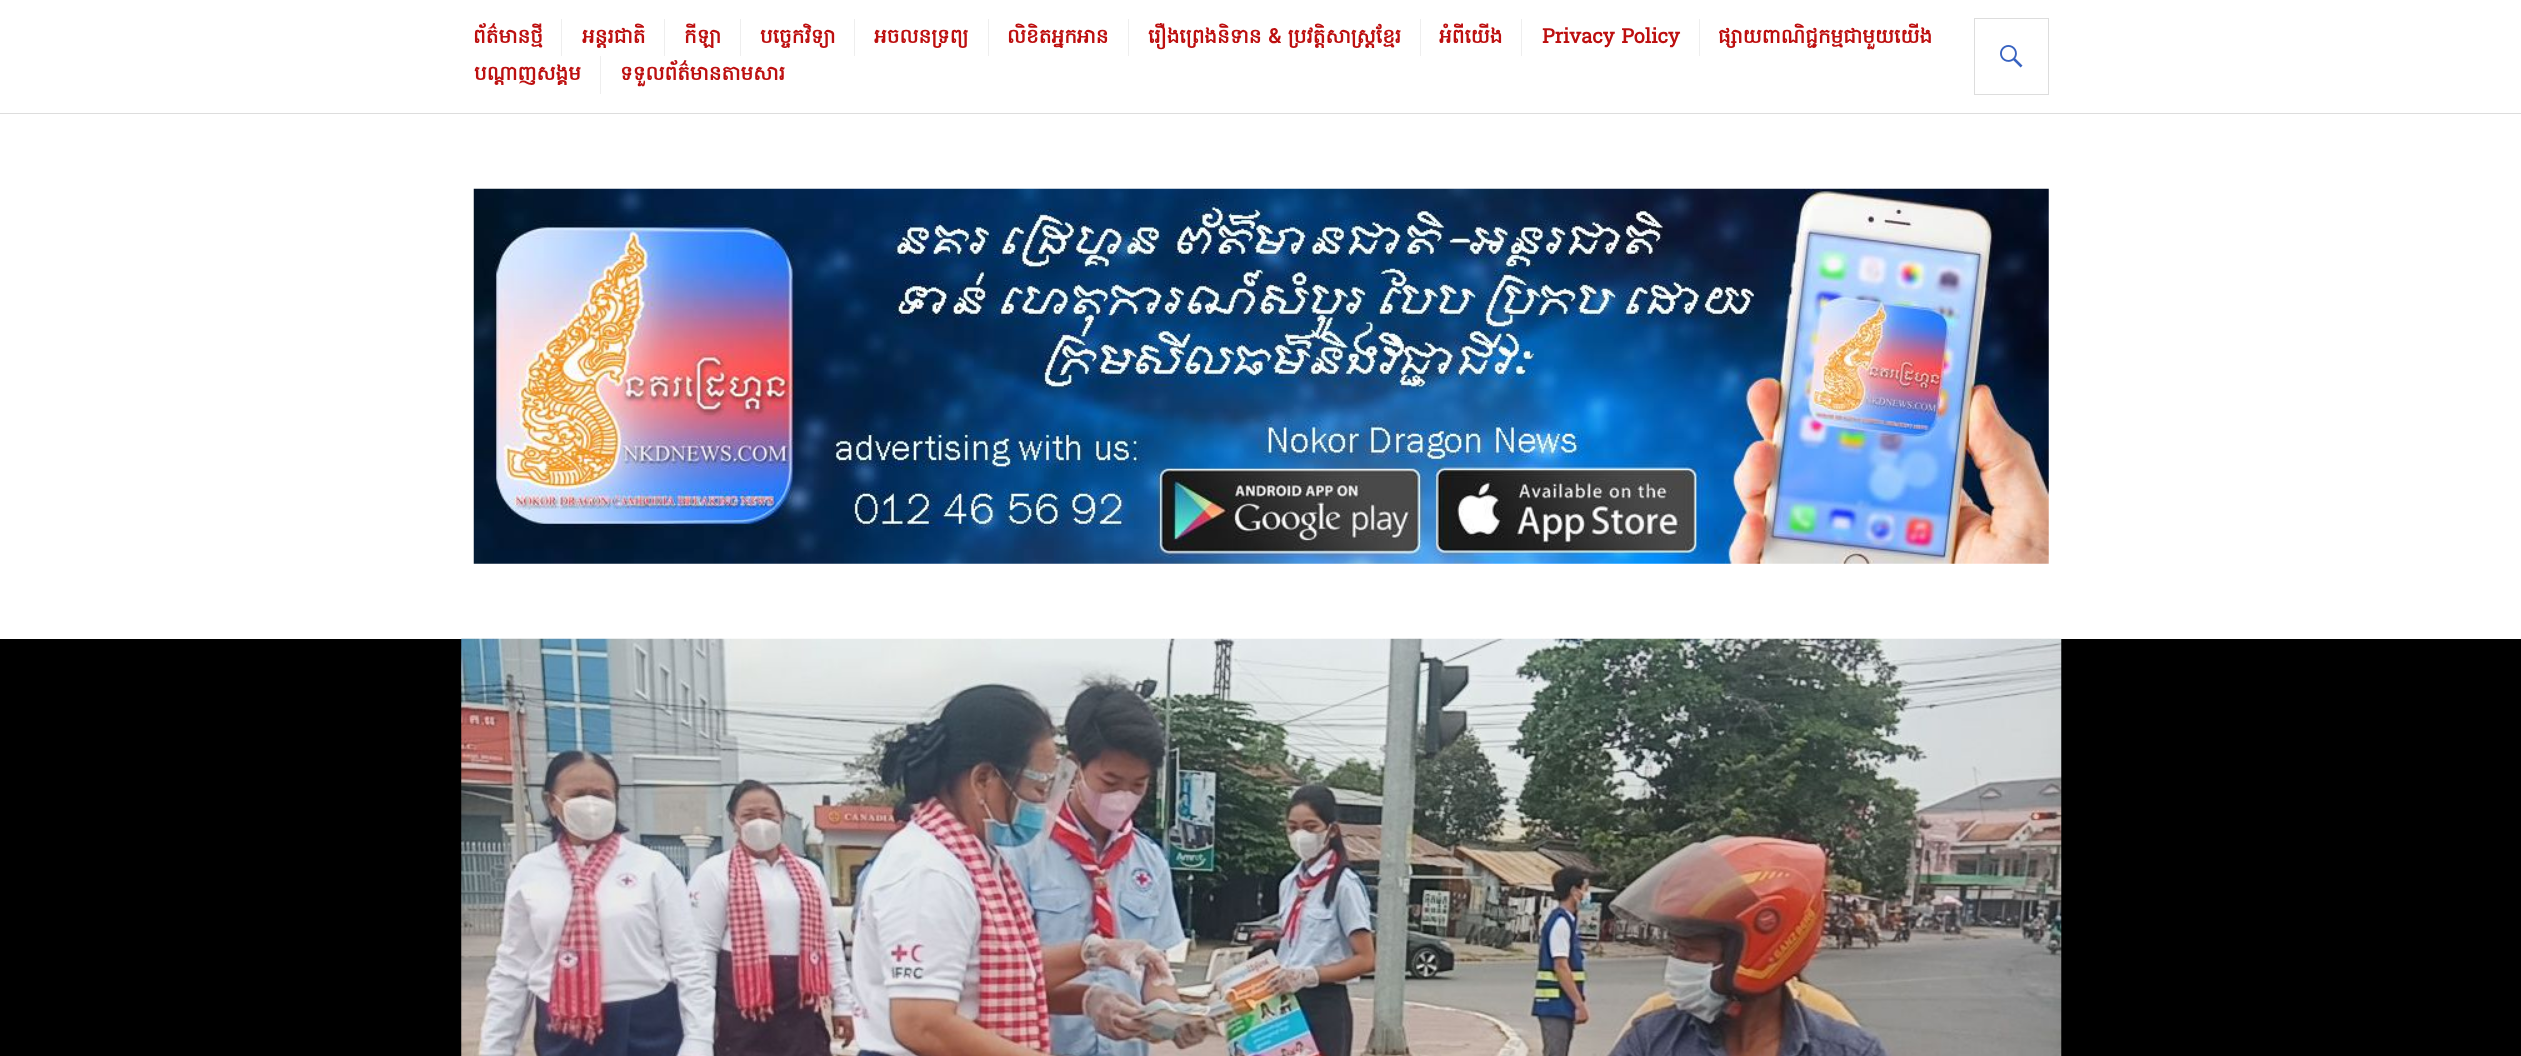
<!DOCTYPE html>
<meta charset="utf-8">
<style>body { margin: 0 } canvas { display: block }</style>
<canvas id="canvas" width="2521" height="1056"></canvas>
<img id="img1" src="images/1.png" hidden>
<img id="img2" src="images/2.png" hidden>
<img id="img3" src="images/3.png" hidden>
<script>
window.onload = function () {
    const canvas = document.getElementById('canvas');
    const context = canvas.getContext('2d');
    context.miterLimit = 4;
    context.fontKerning = 'normal';

    context.fillStyle = 'rgb(255, 255, 255)';
    context.fillRect(0, 0, 2521, 1056);
    context.fillStyle = 'rgb(221, 221, 221)';
    context.fillRect(0, 113, 2521, 1);
    context.fillStyle = 'rgb(238, 238, 238)';
    context.fillRect(561, 19, 1, 37);
    context.fillRect(664, 19, 1, 37);
    context.fillRect(740, 19, 1, 37);
    context.fillRect(854, 19, 1, 37);
    context.fillRect(988, 19, 1, 37);
    context.fillRect(1128, 19, 1, 37);
    context.fillRect(1420, 19, 1, 37);
    context.fillRect(1521, 19, 1, 37);
    context.fillRect(1699, 19, 1, 37);
    context.fillRect(600, 56, 1, 38);
    context.strokeStyle = 'rgb(221, 221, 221)';
    context.strokeRect(1974.5, 18.5, 74, 76);
    context.drawImage(document.getElementById('img1'), 2000, 45, 23, 23);
    context.drawImage(document.getElementById('img2'), 473, 188, 1576, 376);
    context.fillStyle = 'rgb(0, 0, 0)';
    context.fillRect(0, 639, 2521, 417);
    context.drawImage(document.getElementById('img3'), 461, 638, 1601, 418);
    context.font = 'bold 20px Hanuman';
    context.fillStyle = 'rgb(189, 15, 15)';
    context.fillText('ព័ត៌មានថ្មី', 473, 43);
    context.fillText('អន្តរជាតិ', 582, 43);
    context.fillText('កីឡា', 684, 43);
    context.fillText('បច្ចេកវិទ្យា', 760, 43);
    context.fillText('អចលនទ្រព្យ', 874, 43);
    context.fillText('លិខិតអ្នកអាន', 1007, 43);
    context.fillText('រឿងព្រេងនិទាន & ប្រវត្ដិសាស្រ្ដខ្មែរ', 1148, 43);
    context.fillText('អំពីយើង', 1439, 43);
    context.fillText('Privacy Policy', 1542, 43);
    context.fillText('ផ្សាយពាណិជ្ជកម្មជាមួយយើង', 1718, 43);
    context.fillText('បណ្ដាញសង្គម', 474, 80);
    context.fillText('ទទួលព័ត៌មានតាមសារ', 620, 80);
};
</script>
